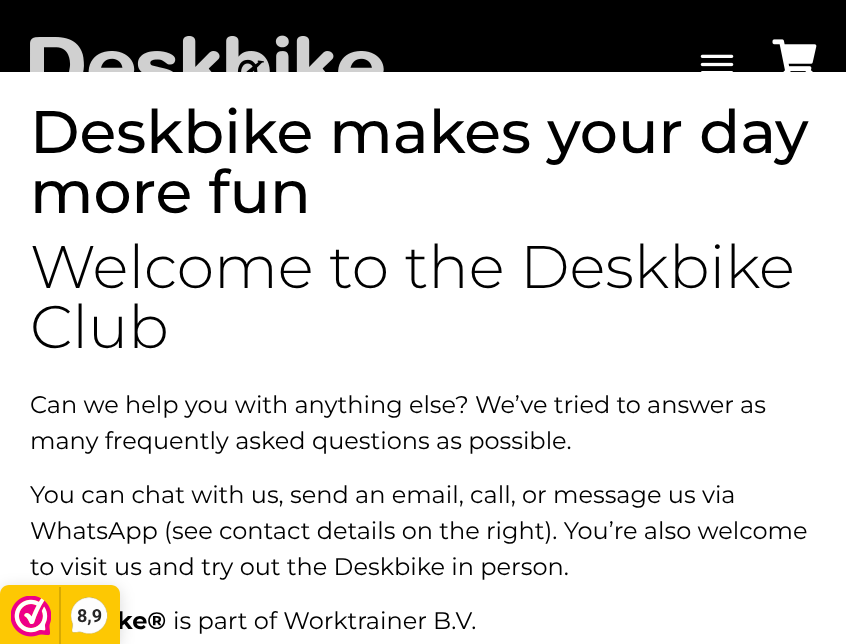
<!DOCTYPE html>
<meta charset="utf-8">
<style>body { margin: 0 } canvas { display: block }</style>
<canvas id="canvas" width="846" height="644"></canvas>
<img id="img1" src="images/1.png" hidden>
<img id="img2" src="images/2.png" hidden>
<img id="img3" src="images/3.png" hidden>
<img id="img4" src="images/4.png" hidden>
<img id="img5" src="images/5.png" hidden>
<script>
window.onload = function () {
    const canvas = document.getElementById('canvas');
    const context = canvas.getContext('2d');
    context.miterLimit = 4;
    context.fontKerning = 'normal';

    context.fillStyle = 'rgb(0, 0, 0)';
    context.fillRect(0, 0, 846, 644);
    context.drawImage(document.getElementById('img1'), 30, 35, 354, 37);
    context.drawImage(document.getElementById('img2'), 700, 54, 34, 18);
    context.drawImage(document.getElementById('img3'), 772, 39, 45, 33);
    context.fillStyle = 'rgb(255, 255, 255)';
    context.fillRect(0, 72, 846, 572);
    context.fillStyle = 'rgba(0, 0, 0, 0.15)';
    context.filter = 'blur(7.5px)';
    context.beginPath();
    context.roundRect(0, 588, 120, 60, 9);
    context.fill();
    context.filter = 'none';
    context.font = '500 60px Montserrat';
    context.fillStyle = 'rgb(0, 0, 0)';
    context.fillText('Deskbike makes your day', 30, 153);
    context.fillText('more fun', 30, 213);
    context.font = '300 60px Montserrat';
    context.fillText('Welcome to the Deskbike', 30, 288);
    context.fillText('Club', 30, 348);
    context.font = '24px Montserrat';
    context.fillText('Can we help you with anything else? We’ve tried to answer as', 30, 413);
    context.fillText('many frequently asked questions as possible.', 30, 449);
    context.fillText('You can chat with us, send an email, call, or message us via', 30, 503);
    context.fillText('WhatsApp (see contact details on the right). You’re also welcome', 30, 539);
    context.fillText('to visit us and try out the Deskbike in person.', 30, 575);
    context.font = 'bold 24px Montserrat';
    context.fillText('ke®', 117, 629);
    context.font = '24px Montserrat';
    context.fillText('is part of Worktrainer B.V.', 173, 629);
    context.fillStyle = 'rgb(253, 200, 3)';
    context.beginPath();
    context.moveTo(9, 585);
    context.lineTo(111, 585);
    context.bezierCurveTo(116, 585, 120, 589, 120, 594);
    context.lineTo(120, 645);
    context.lineTo(0, 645);
    context.lineTo(0, 594);
    context.bezierCurveTo(0, 589, 4, 585, 9, 585);
    context.closePath();
    context.fill();
    context.drawImage(document.getElementById('img4'), 11, 596, 40, 41);
    context.fillStyle = 'rgb(215, 170, 3)';
    context.fillRect(59, 587, 2, 57);
    context.drawImage(document.getElementById('img5'), 70, 597, 38, 38);
    context.font = 'bold 18px Roboto';
    context.fillStyle = 'rgb(39, 38, 38)';
    context.fillText('8,9', 77, 622);
};
</script>
